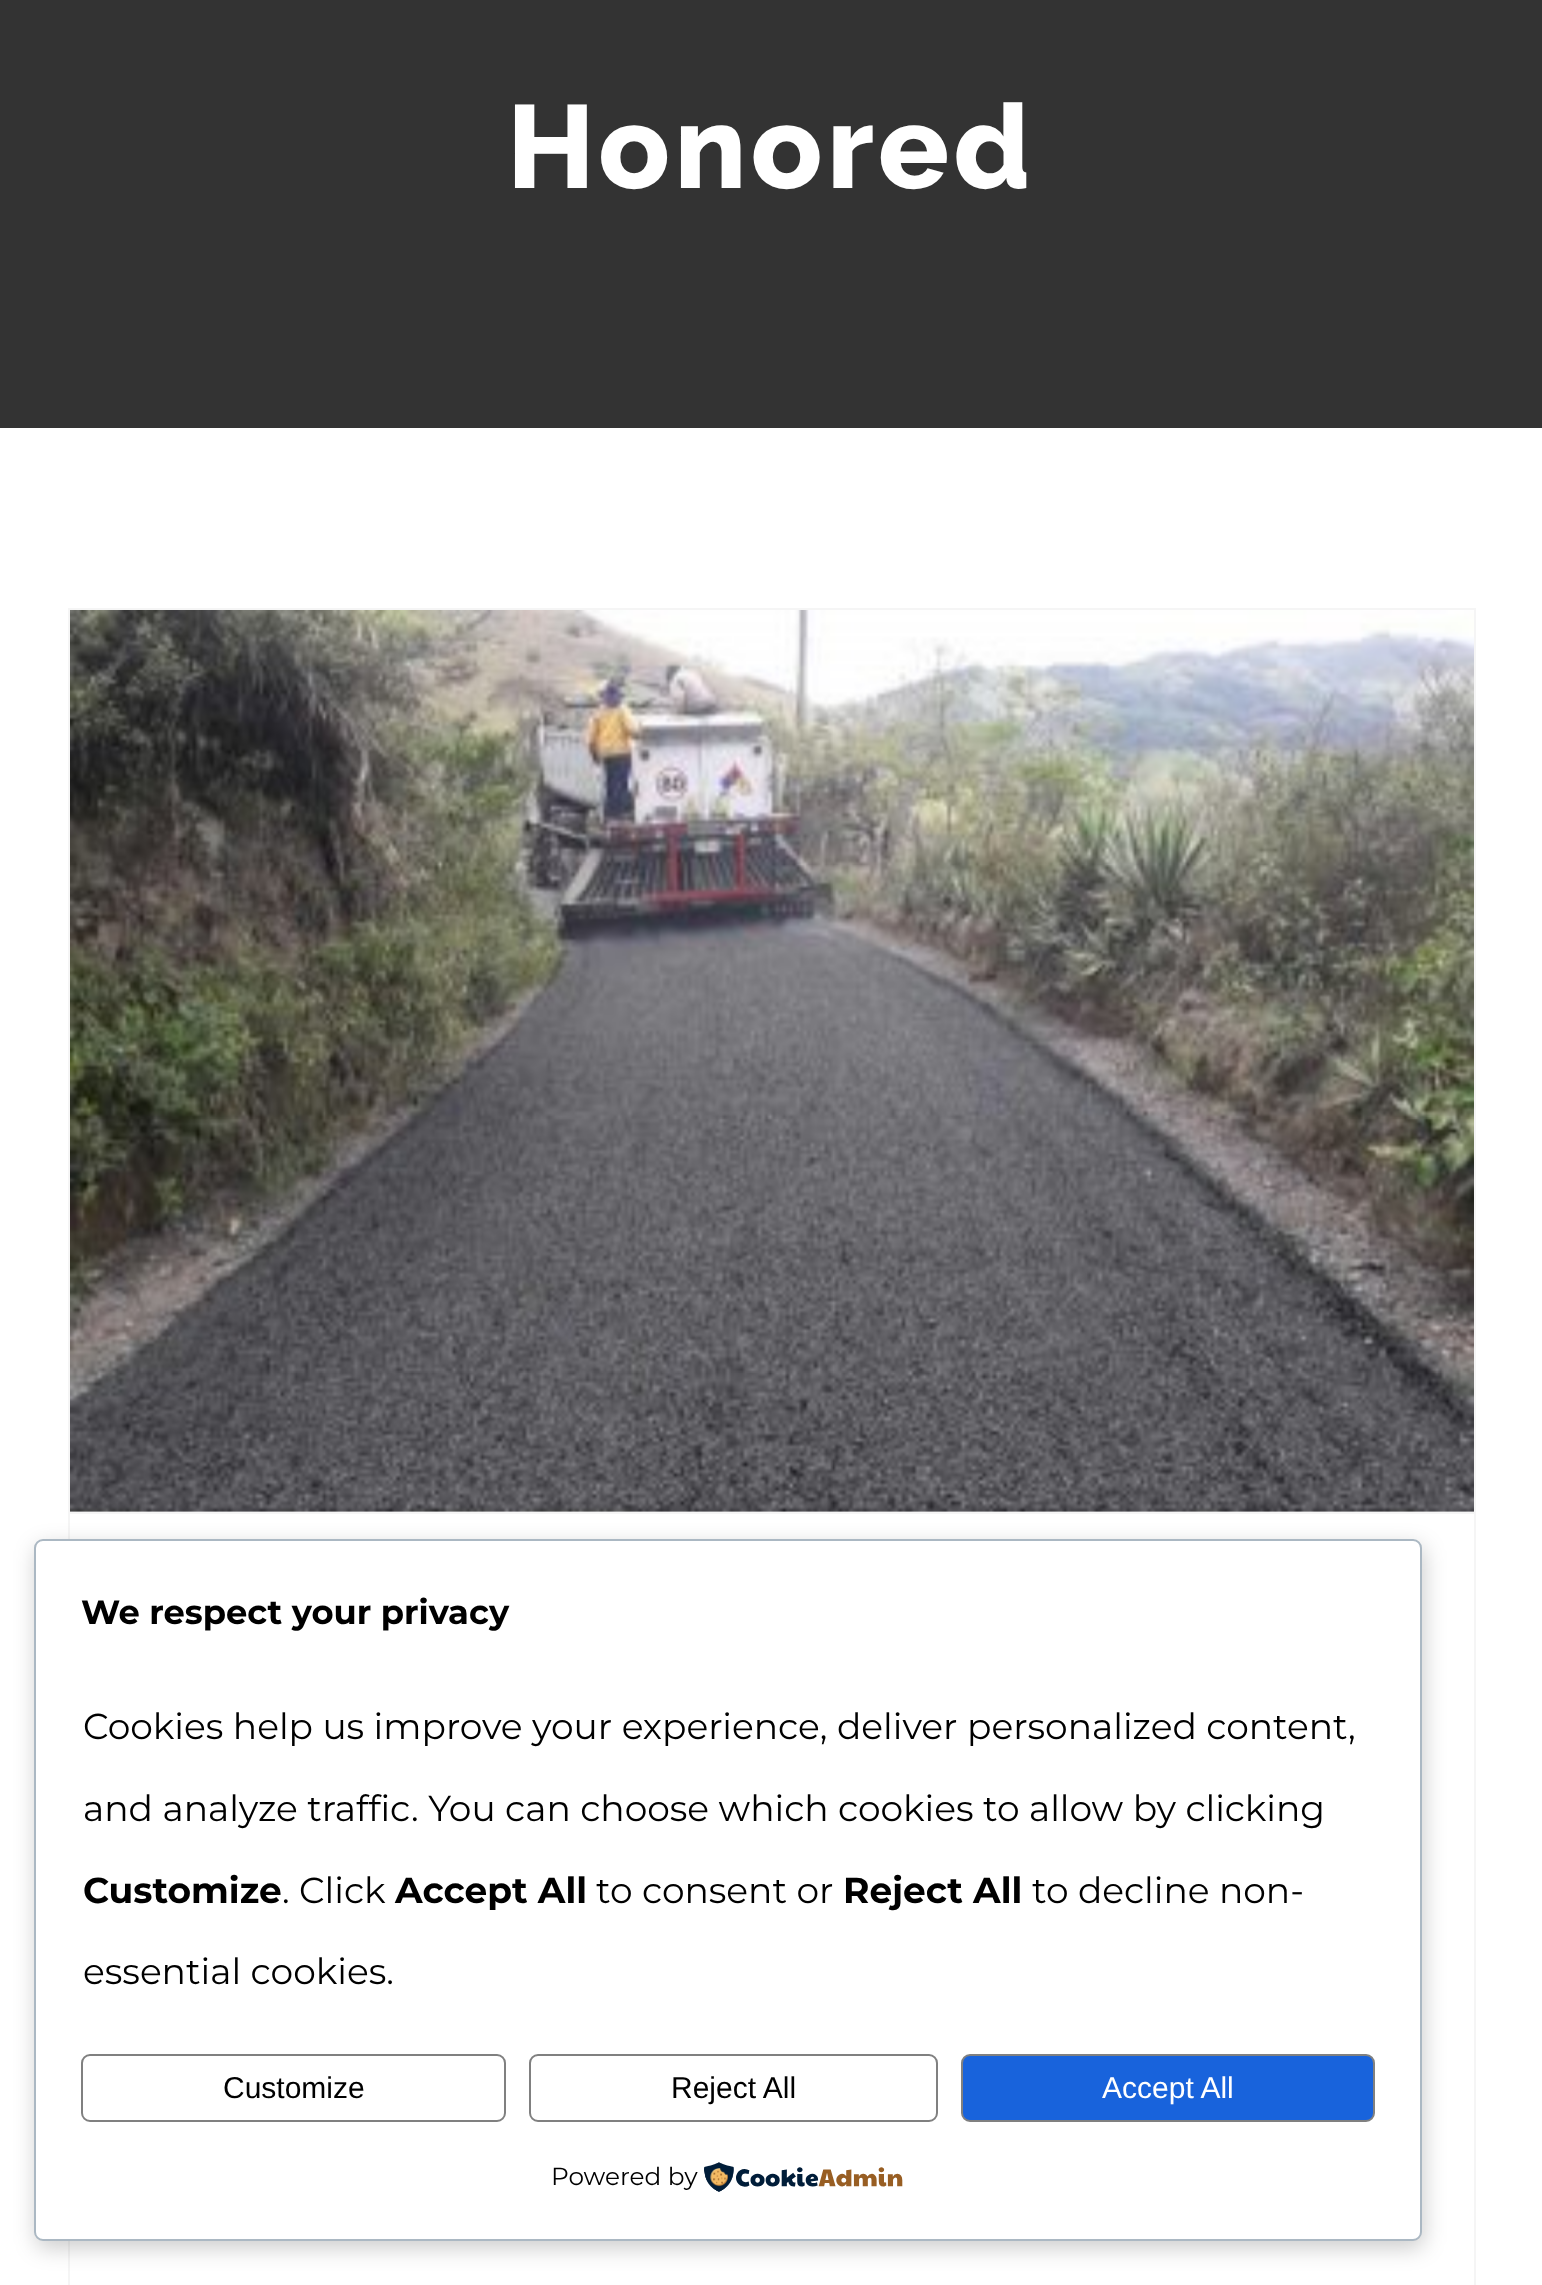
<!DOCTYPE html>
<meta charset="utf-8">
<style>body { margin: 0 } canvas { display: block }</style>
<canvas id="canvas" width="1542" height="2285"></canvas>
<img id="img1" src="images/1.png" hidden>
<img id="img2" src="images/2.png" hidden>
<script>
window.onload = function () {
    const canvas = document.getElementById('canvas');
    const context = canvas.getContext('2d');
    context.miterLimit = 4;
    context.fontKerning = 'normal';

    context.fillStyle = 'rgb(255, 255, 255)';
    context.fillRect(0, 0, 1542, 2285);
    context.fillStyle = 'rgb(51, 51, 51)';
    context.fillRect(0, 0, 1542, 428);
    context.fillStyle = 'rgb(245, 245, 245)';
    context.fillRect(68, 608, 1408, 2);
    context.fillRect(1474, 608, 2, 1677);
    context.fillRect(68, 608, 2, 1677);
    context.fillRect(70, 1512, 1404, 2);
    context.drawImage(document.getElementById('img1'), 70, 610, 1404, 902);
    context.fillStyle = 'rgba(0, 0, 0, 0.2)';
    context.filter = 'blur(11px)';
    context.beginPath();
    context.roundRect(36, 1546, 1388, 702, 9);
    context.fill();
    context.filter = 'none';
    context.fillStyle = 'rgb(255, 255, 255)';
    context.beginPath();
    context.roundRect(35, 1540, 1386, 700, 8);
    context.fill();
    context.strokeStyle = 'rgb(171, 184, 195)';
    context.lineWidth = 2;
    context.stroke();
    context.beginPath();
    context.roundRect(82, 2055, 423, 66, 8);
    context.strokeStyle = 'rgb(128, 128, 128)';
    context.stroke();
    context.beginPath();
    context.roundRect(530, 2055, 407, 66, 8);
    context.stroke();
    context.fillStyle = 'rgb(24, 99, 220)';
    context.beginPath();
    context.roundRect(962, 2055, 412, 66, 8);
    context.fill();
    context.stroke();
    context.drawImage(document.getElementById('img2'), 704, 2162, 199, 30);
    context.letterSpacing = '4.5px';
    context.font = '800 117.5px Raleway';
    context.fillStyle = 'rgb(255, 255, 255)';
    context.fillText('Honored', 507, 188);
    context.letterSpacing = '0px';
    context.font = 'bold 33.75px Montserrat';
    context.fillStyle = 'rgb(0, 0, 0)';
    context.fillText('We respect your privacy', 81, 1624);
    context.font = '36px Montserrat';
    context.fillText('Cookies help us improve your experience, deliver personalized content,', 83, 1739);
    context.fillText('and analyze traffic. You can choose which cookies to allow by clicking', 83, 1821);
    context.font = 'bold 36px Montserrat';
    context.fillText('Customize', 83, 1903);
    context.font = '36px Montserrat';
    context.fillText('. Click', 282, 1903);
    context.font = 'bold 36px Montserrat';
    context.fillText('Accept All', 395, 1903);
    context.font = '36px Montserrat';
    context.fillText('to consent or', 596, 1903);
    context.font = 'bold 36px Montserrat';
    context.fillText('Reject All', 843, 1903);
    context.font = '36px Montserrat';
    context.fillText('to decline non-', 1032, 1903);
    context.fillText('essential cookies.', 83, 1984);
    context.font = '30px Liberation Sans';
    context.fillText('Customize', 223, 2098);
    context.fillText('Reject All', 671, 2098);
    context.fillStyle = 'rgb(255, 255, 255)';
    context.fillText('Accept All', 1102, 2098);
    context.font = '24.75px Montserrat';
    context.fillStyle = 'rgb(0, 0, 0)';
    context.fillText('Powered by', 551, 2185);
};
</script>
